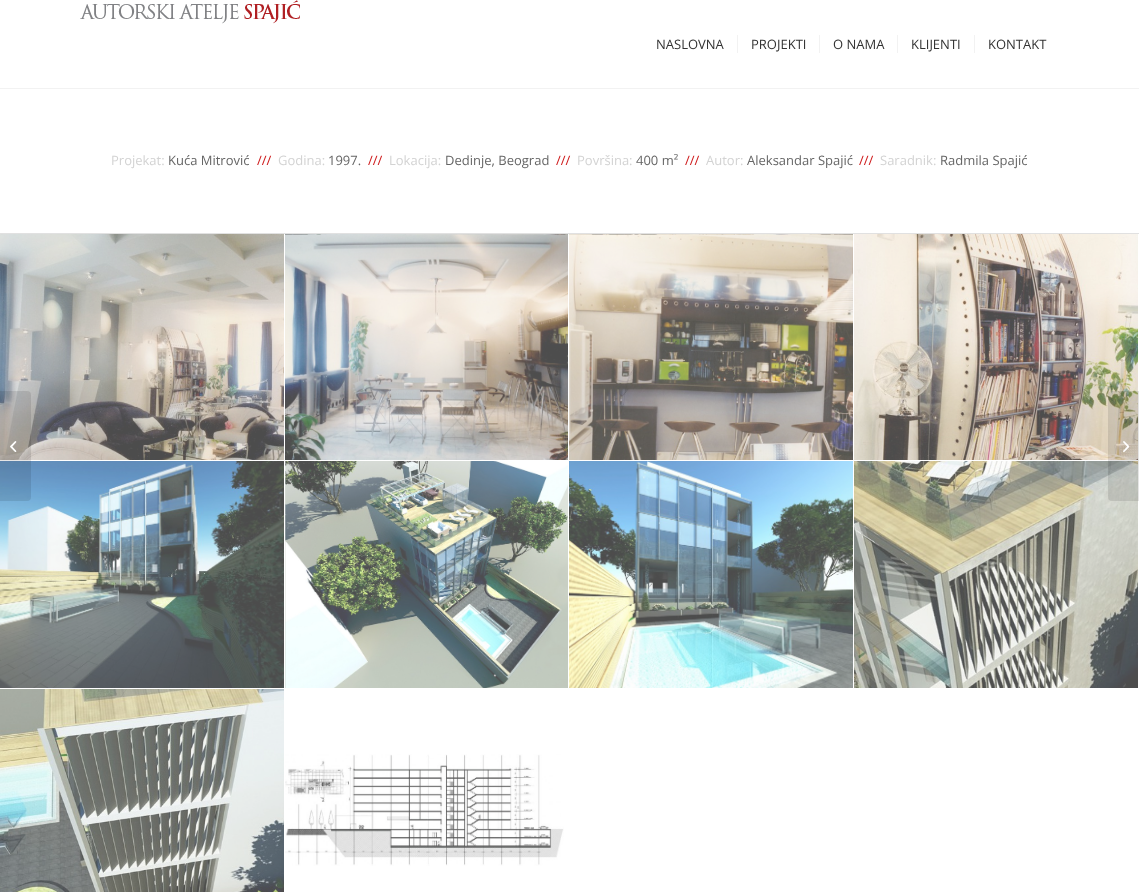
<!DOCTYPE html>
<meta charset="utf-8">
<style>body { margin: 0 } canvas { display: block }</style>
<canvas id="canvas" width="1139" height="892"></canvas>
<img id="img1" src="images/1.png" hidden>
<img id="img2" src="images/2.png" hidden>
<img id="img3" src="images/3.png" hidden>
<img id="img4" src="images/4.png" hidden>
<img id="img5" src="images/5.png" hidden>
<img id="img6" src="images/6.png" hidden>
<img id="img7" src="images/7.png" hidden>
<img id="img8" src="images/8.png" hidden>
<img id="img9" src="images/9.png" hidden>
<img id="img10" src="images/10.png" hidden>
<img id="img11" src="images/11.png" hidden>
<img id="img12" src="images/12.png" hidden>
<img id="img13" src="images/13.png" hidden>
<script>
window.onload = function () {
    const canvas = document.getElementById('canvas');
    const context = canvas.getContext('2d');
    context.miterLimit = 4;
    context.fontKerning = 'normal';

    context.fillStyle = 'rgb(255, 255, 255)';
    context.fillRect(0, 0, 1139, 892);
    context.fillStyle = 'rgb(242, 242, 242)';
    context.fillRect(0, 88, 1139, 1);
    context.drawImage(document.getElementById('img1'), 80, 0, 220, 24);
    context.fillRect(737, 35, 1, 18);
    context.fillRect(819, 35, 1, 18);
    context.fillRect(897, 35, 1, 18);
    context.fillRect(974, 35, 1, 18);
    context.fillStyle = 'rgb(225, 225, 225)';
    context.fillRect(0, 233, 1139, 1);
    context.drawImage(document.getElementById('img2'), 0, 234, 284, 226);
    context.drawImage(document.getElementById('img3'), 285, 234, 283, 226);
    context.drawImage(document.getElementById('img4'), 569, 234, 284, 226);
    context.drawImage(document.getElementById('img5'), 854, 234, 284, 226);
    context.drawImage(document.getElementById('img6'), 0, 461, 284, 227);
    context.drawImage(document.getElementById('img7'), 285, 461, 283, 227);
    context.drawImage(document.getElementById('img8'), 569, 461, 284, 227);
    context.drawImage(document.getElementById('img9'), 854, 461, 284, 227);
    context.drawImage(document.getElementById('img10'), 0, 689, 284, 203);
    context.drawImage(document.getElementById('img11'), 285, 754, 279, 112);
    context.fillStyle = 'rgba(0, 0, 0, 0.1)';
    context.beginPath();
    context.roundRect(0, 391, 31, 110, [0, 4, 4, 0]);
    context.fill();
    context.drawImage(document.getElementById('img12'), 10, 441, 7, 11);
    context.beginPath();
    context.roundRect(1108, 391, 31, 110, [4, 0, 0, 4]);
    context.fill();
    context.drawImage(document.getElementById('img13'), 1123, 441, 7, 11);
    context.font = '13px Open Sans';
    context.fillStyle = 'rgb(51, 51, 51)';
    context.fillText('NASLOVNA', 656, 49);
    context.fillText('PROJEKTI', 751, 49);
    context.fillText('O NAMA', 833, 49);
    context.fillText('KLIJENTI', 911, 49);
    context.fillText('KONTAKT', 988, 49);
    context.fillStyle = 'rgb(211, 211, 211)';
    context.fillText('Projekat:', 111, 165);
    context.fillStyle = 'rgb(102, 102, 102)';
    context.fillText('Kuća Mitrović', 168, 165);
    context.fillStyle = 'rgb(206, 26, 27)';
    context.fillText('///', 257, 165);
    context.fillStyle = 'rgb(211, 211, 211)';
    context.fillText('Godina:', 278, 165);
    context.fillStyle = 'rgb(102, 102, 102)';
    context.fillText('1997.', 328, 165);
    context.fillStyle = 'rgb(206, 26, 27)';
    context.fillText('///', 368, 165);
    context.fillStyle = 'rgb(211, 211, 211)';
    context.fillText('Lokacija:', 389, 165);
    context.fillStyle = 'rgb(102, 102, 102)';
    context.fillText('Dedinje, Beograd', 445, 165);
    context.fillStyle = 'rgb(206, 26, 27)';
    context.fillText('///', 556, 165);
    context.fillStyle = 'rgb(211, 211, 211)';
    context.fillText('Površina:', 577, 165);
    context.fillStyle = 'rgb(102, 102, 102)';
    context.fillText('400 m²', 636, 165);
    context.fillStyle = 'rgb(206, 26, 27)';
    context.fillText('///', 685, 165);
    context.fillStyle = 'rgb(211, 211, 211)';
    context.fillText('Autor:', 706, 165);
    context.fillStyle = 'rgb(102, 102, 102)';
    context.fillText('Aleksandar Spajić', 747, 165);
    context.fillStyle = 'rgb(206, 26, 27)';
    context.fillText('///', 859, 165);
    context.fillStyle = 'rgb(211, 211, 211)';
    context.fillText('Saradnik:', 880, 165);
    context.fillStyle = 'rgb(102, 102, 102)';
    context.fillText('Radmila Spajić', 940, 165);
};
</script>
